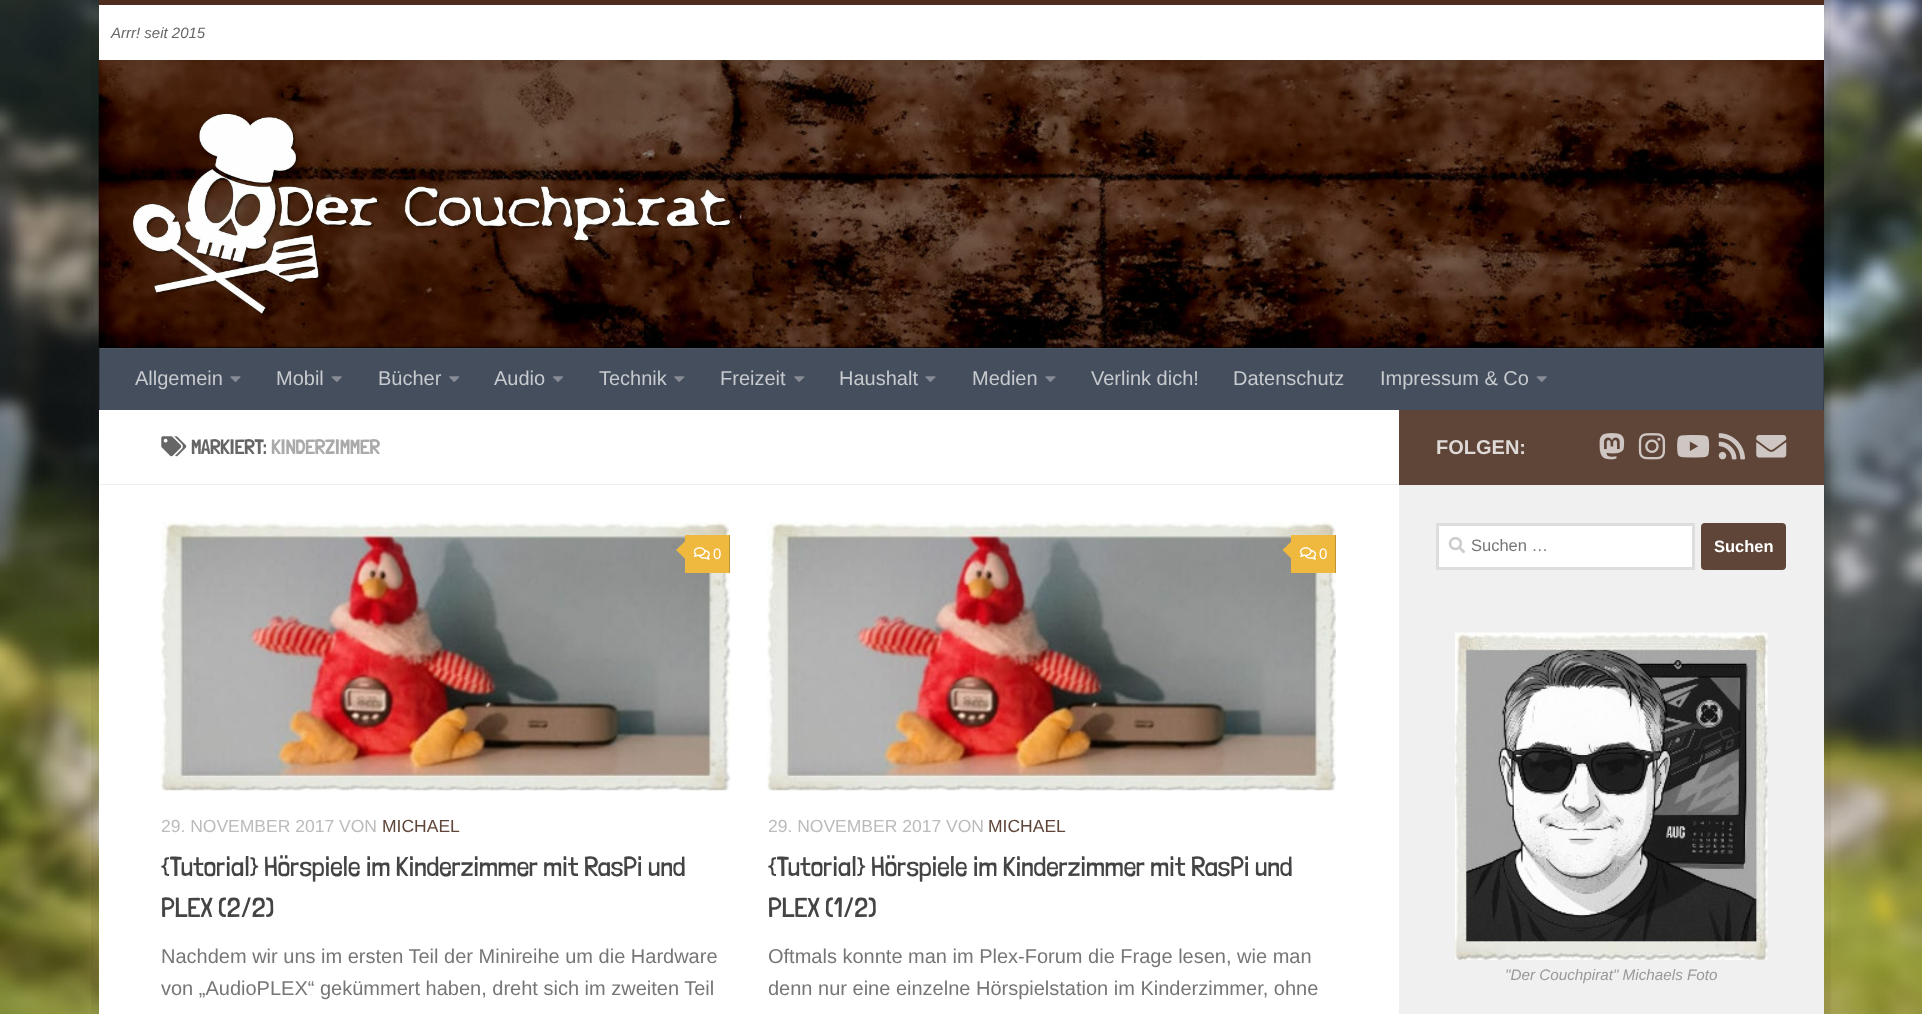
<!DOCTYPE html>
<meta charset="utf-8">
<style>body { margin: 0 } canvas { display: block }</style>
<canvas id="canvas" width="1922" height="1014"></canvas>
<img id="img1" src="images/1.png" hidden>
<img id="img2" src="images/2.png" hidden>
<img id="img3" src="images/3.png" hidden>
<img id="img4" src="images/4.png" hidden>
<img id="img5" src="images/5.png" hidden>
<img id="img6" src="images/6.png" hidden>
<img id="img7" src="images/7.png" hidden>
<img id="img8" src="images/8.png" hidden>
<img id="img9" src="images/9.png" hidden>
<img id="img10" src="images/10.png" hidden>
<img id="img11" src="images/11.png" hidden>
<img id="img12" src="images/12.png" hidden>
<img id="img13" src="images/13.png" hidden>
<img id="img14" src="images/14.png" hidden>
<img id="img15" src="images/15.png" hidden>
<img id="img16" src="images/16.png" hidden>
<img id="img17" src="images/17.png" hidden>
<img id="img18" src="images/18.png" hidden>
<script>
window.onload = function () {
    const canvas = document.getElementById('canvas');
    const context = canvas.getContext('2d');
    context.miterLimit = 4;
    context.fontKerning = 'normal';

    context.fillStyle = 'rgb(255, 255, 255)';
    context.fillRect(0, 0, 1922, 1014);
    context.drawImage(document.getElementById('img1'), 0, 0, 1922, 1014);
    context.fillStyle = 'rgba(0, 0, 0, 0.04)';
    context.beginPath();
    context.moveTo(91, 0);
    context.lineTo(91, 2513);
    context.lineTo(1816, 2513);
    context.lineTo(1816, 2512);
    context.lineTo(99, 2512);
    context.lineTo(99, 0);
    context.closePath();
    context.fill();
    context.beginPath();
    context.moveTo(106, 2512);
    context.lineTo(106, 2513);
    context.lineTo(1831, 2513);
    context.lineTo(1831, 0);
    context.lineTo(1824, 0);
    context.lineTo(1824, 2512);
    context.closePath();
    context.fill();
    context.fillStyle = 'rgb(0, 0, 0)';
    context.fillRect(99, 60, 1725, 288);
    context.fillStyle = 'rgb(255, 255, 255)';
    context.fillRect(99, 5, 1725, 55);
    context.fillStyle = 'rgb(79, 45, 30)';
    context.fillRect(99, 0, 1725, 5);
    context.drawImage(document.getElementById('img2'), 98, 60, 1726, 288);
    context.fillStyle = 'rgba(0, 0, 0, 0.2)';
    context.beginPath();
    context.moveTo(99, 346);
    context.lineTo(99, 348);
    context.lineTo(1824, 348);
    context.lineTo(1824, 409);
    context.lineTo(1824, 346);
    context.closePath();
    context.fill();
    context.fillStyle = 'rgb(69, 78, 92)';
    context.fillRect(100, 348, 1723, 62);
    context.fillStyle = 'rgb(55, 62, 74)';
    context.fillRect(1823, 348, 1, 62);
    context.fillRect(99, 348, 1, 62);
    context.fillStyle = 'rgba(255, 255, 255, 0.05)';
    context.fillRect(99, 348, 1725, 1);
    context.drawImage(document.getElementById('img3'), 230, 376, 11, 6);
    context.drawImage(document.getElementById('img4'), 331, 376, 11, 6);
    context.drawImage(document.getElementById('img5'), 449, 376, 11, 6);
    context.drawImage(document.getElementById('img6'), 553, 376, 10, 6);
    context.drawImage(document.getElementById('img5'), 674, 376, 11, 6);
    context.drawImage(document.getElementById('img5'), 794, 376, 11, 6);
    context.drawImage(document.getElementById('img3'), 925, 376, 11, 6);
    context.drawImage(document.getElementById('img3'), 1045, 376, 11, 6);
    context.drawImage(document.getElementById('img4'), 1536, 376, 11, 6);
    context.fillStyle = 'rgb(255, 255, 255)';
    context.fillRect(99, 410, 1300, 604);
    context.fillStyle = 'rgb(238, 238, 238)';
    context.fillRect(99, 484, 1300, 1);
    context.drawImage(document.getElementById('img7'), 161, 436, 26, 21);
    context.drawImage(document.getElementById('img8'), 161, 522, 570, 269);
    context.fillStyle = 'rgb(239, 185, 63)';
    context.fillRect(685, 535, 44, 38);
    context.fillStyle = 'rgb(191, 148, 50)';
    context.fillRect(729, 535, 1, 38);
    context.fillStyle = 'rgb(239, 185, 63)';
    context.beginPath();
    context.moveTo(687.5, 539);
    context.lineTo(687.5, 561);
    context.lineTo(676, 550);
    context.closePath();
    context.fill();
    context.drawImage(document.getElementById('img9'), 693, 547, 17, 13);
    context.drawImage(document.getElementById('img10'), 767, 522, 569, 269);
    context.fillRect(1291, 535, 44, 38);
    context.fillStyle = 'rgb(191, 148, 50)';
    context.fillRect(1335, 535, 1, 38);
    context.fillStyle = 'rgb(239, 185, 63)';
    context.beginPath();
    context.moveTo(1294, 539);
    context.lineTo(1294, 561);
    context.lineTo(1282.5, 550);
    context.closePath();
    context.fill();
    context.drawImage(document.getElementById('img11'), 1300, 547, 17, 13);
    context.fillStyle = 'rgb(95, 68, 56)';
    context.fillRect(1399, 410, 425, 75);
    context.drawImage(document.getElementById('img12'), 1599, 433, 26, 27);
    context.drawImage(document.getElementById('img13'), 1638, 433, 28, 27);
    context.drawImage(document.getElementById('img14'), 1677, 435, 33, 23);
    context.drawImage(document.getElementById('img15'), 1718, 433, 27, 27);
    context.drawImage(document.getElementById('img16'), 1756, 435, 31, 23);
    context.fillStyle = 'rgb(240, 240, 240)';
    context.fillRect(1399, 485, 425, 529);
    context.fillStyle = 'rgb(255, 255, 255)';
    context.beginPath();
    context.rect(1437.5, 524.5, 256, 44);
    context.fill();
    context.strokeStyle = 'rgb(221, 221, 221)';
    context.lineWidth = 3;
    context.stroke();
    context.drawImage(document.getElementById('img17'), 1448, 537, 17, 17);
    context.fillStyle = 'rgb(95, 68, 56)';
    context.beginPath();
    context.roundRect(1701, 523, 85, 47, 4);
    context.fill();
    context.drawImage(document.getElementById('img18'), 1455, 632, 313, 328);
    context.font = 'italic 15px Liberation Sans';
    context.fillStyle = 'rgb(102, 102, 102)';
    context.fillText('Arrr! seit 2015', 111, 38);
    context.font = '20px Liberation Sans';
    context.fillStyle = 'rgb(199, 202, 206)';
    context.fillText('Allgemein', 135, 385);
    context.fillText('Mobil', 276, 385);
    context.fillText('Bücher', 378, 385);
    context.fillText('Audio', 494, 385);
    context.fillText('Technik', 599, 385);
    context.fillText('Freizeit', 720, 385);
    context.fillText('Haushalt', 839, 385);
    context.fillText('Medien', 972, 385);
    context.fillText('Verlink dich!', 1091, 385);
    context.fillText('Datenschutz', 1233, 385);
    context.fillText('Impressum & Co', 1380, 385);
    context.font = 'bold 20px Londrina Solid';
    context.fillStyle = 'rgb(102, 102, 102)';
    context.fillText('MARKIERT:', 191, 454);
    context.fillStyle = 'rgb(170, 170, 170)';
    context.fillText('KINDERZIMMER', 271, 454);
    context.font = '15px Liberation Sans';
    context.fillStyle = 'rgb(255, 255, 255)';
    context.fillText('0', 713, 559);
    context.font = '17.5px Liberation Sans';
    context.fillStyle = 'rgb(187, 187, 187)';
    context.fillText('29. NOVEMBER 2017 VON', 161, 832);
    context.fillStyle = 'rgb(95, 68, 56)';
    context.fillText('MICHAEL', 382, 832);
    context.font = '300 27.5px Londrina Solid';
    context.fillStyle = 'rgb(68, 68, 68)';
    context.fillText('{Tutorial} Hörspiele im Kinderzimmer mit RasPi und', 161, 876);
    context.fillText('PLEX (2/2)', 161, 917);
    context.font = '20px Liberation Sans';
    context.fillStyle = 'rgb(118, 118, 118)';
    context.fillText('Nachdem wir uns im ersten Teil der Minireihe um die Hardware', 161, 963);
    context.fillText('von „AudioPLEX“ gekümmert haben, dreht sich im zweiten Teil', 161, 995);
    context.font = '15px Liberation Sans';
    context.fillStyle = 'rgb(255, 255, 255)';
    context.fillText('0', 1319, 559);
    context.font = '17.5px Liberation Sans';
    context.fillStyle = 'rgb(187, 187, 187)';
    context.fillText('29. NOVEMBER 2017 VON', 768, 832);
    context.fillStyle = 'rgb(95, 68, 56)';
    context.fillText('MICHAEL', 988, 832);
    context.font = '300 27.5px Londrina Solid';
    context.fillStyle = 'rgb(68, 68, 68)';
    context.fillText('{Tutorial} Hörspiele im Kinderzimmer mit RasPi und', 768, 876);
    context.fillText('PLEX (1/2)', 768, 917);
    context.font = '20px Liberation Sans';
    context.fillStyle = 'rgb(118, 118, 118)';
    context.fillText('Oftmals konnte man im Plex-Forum die Frage lesen, wie man', 768, 963);
    context.fillText('denn nur eine einzelne Hörspielstation im Kinderzimmer, ohne', 768, 995);
    context.font = 'bold 20px Liberation Sans';
    context.fillStyle = 'rgb(223, 218, 215)';
    context.fillText('FOLGEN:', 1436, 454);
    context.font = '16.5px Liberation Sans';
    context.fillStyle = 'rgb(118, 118, 118)';
    context.fillText('Suchen …', 1471, 551);
    context.font = 'bold 16.5px Liberation Sans';
    context.fillStyle = 'rgb(255, 255, 255)';
    context.fillText('Suchen', 1714, 552);
    context.font = 'italic 15.25px Liberation Sans';
    context.fillStyle = 'rgb(153, 153, 153)';
    context.fillText('"Der Couchpirat" Michaels Foto', 1505, 980);
};
</script>
